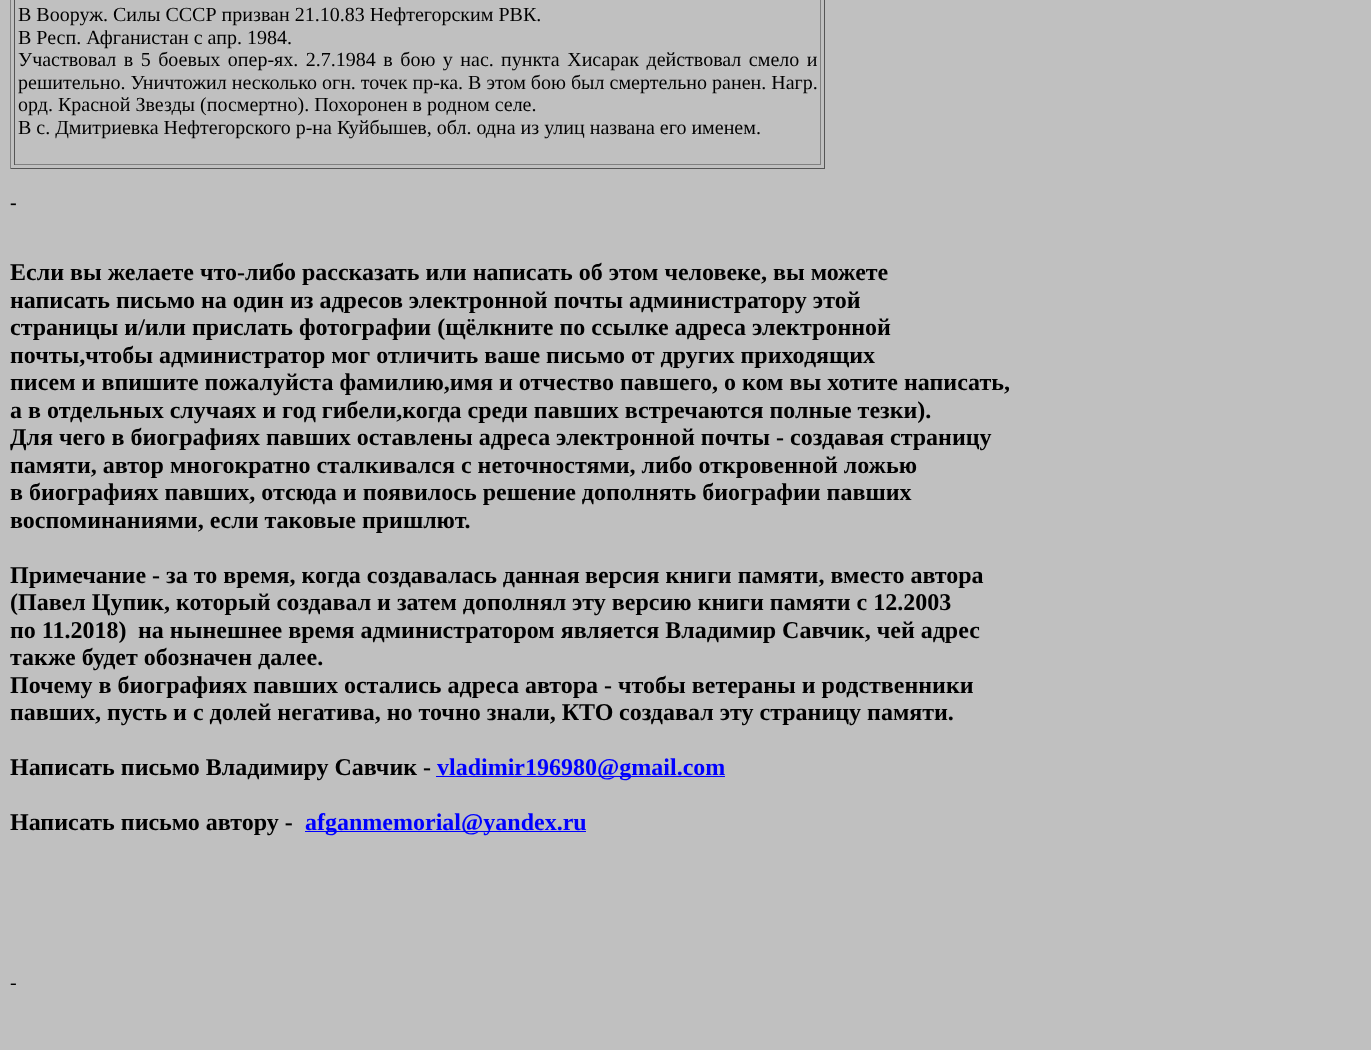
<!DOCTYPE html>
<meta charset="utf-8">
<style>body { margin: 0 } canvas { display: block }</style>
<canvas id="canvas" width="1371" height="1050"></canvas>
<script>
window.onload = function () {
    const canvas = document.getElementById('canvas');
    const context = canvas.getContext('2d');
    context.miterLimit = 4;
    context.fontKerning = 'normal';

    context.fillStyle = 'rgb(192, 192, 192)';
    context.fillRect(0, 0, 1371, 1050);
    context.fillStyle = 'rgb(85, 85, 85)';
    context.fillRect(824, 0, 1, 169);
    context.fillRect(10, 168, 815, 1);
    context.fillStyle = 'rgb(128, 128, 128)';
    context.fillRect(10, 0, 1, 169);
    context.fillRect(820, 0, 1, 165);
    context.fillRect(14, 164, 807, 1);
    context.fillStyle = 'rgb(85, 85, 85)';
    context.fillRect(14, 0, 1, 165);
    context.fillStyle = 'rgb(0, 0, 255)';
    context.fillRect(436, 776, 289, 1);
    context.fillRect(305, 831, 281, 1);
    context.font = '20px Liberation Serif';
    context.fillStyle = 'rgb(0, 0, 0)';
    context.fillText('В Вооруж. Силы СССР призван 21.10.83 Нефтегорским РВК.', 18, 21);
    context.fillText('В Респ. Афганистан с апр. 1984.', 18, 44);
    context.wordSpacing = '2.5px';
    context.fillText('Участвовал в 5 боевых опер-ях. 2.7.1984 в бою у нас.', 18, 66);
    context.fillText('пункта Хисарак действовал смело и', 501, 66);
    context.wordSpacing = '0px';
    context.fillText('решительно. Уничтожил несколько огн. точек пр-ка. В этом бою был смертельно ранен. Нагр.', 18, 89);
    context.fillText('орд. Красной Звезды (посмертно). Похоронен в родном селе.', 18, 111);
    context.fillText('В с. Дмитриевка Нефтегорского р-на Куйбышев, обл. одна из улиц названа его именем.', 18, 134);
    context.font = 'bold 20px Liberation Serif';
    context.fillText('-', 10, 209);
    context.font = 'bold 24px Liberation Serif';
    context.fillText('Если вы желаете что-либо рассказать или написать об этом человеке, вы можете', 10, 280);
    context.fillText('написать письмо на один из адресов электронной почты администратору этой', 10, 308);
    context.fillText('страницы и/или прислать фотографии (щёлкните по ссылке адреса электронной', 10, 335);
    context.fillText('почты,чтобы администратор мог отличить ваше письмо от других приходящих', 10, 363);
    context.fillText('писем и впишите пожалуйста фамилию,имя и отчество павшего, о ком вы хотите написать,', 10, 390);
    context.fillText('а в отдельных случаях и год гибели,когда среди павших встречаются полные тезки).', 10, 418);
    context.fillText('Для чего в биографиях павших оставлены адреса', 10, 445);
    context.fillText('электронной почты - создавая страницу', 556, 445);
    context.fillText('памяти, автор многократно сталкивался с неточностями, либо откровенной ложью', 10, 473);
    context.fillText('в биографиях павших, отсюда и появилось решение дополнять биографии павших', 10, 500);
    context.fillText('воспоминаниями, если таковые пришлют.', 10, 528);
    context.fillText('Примечание - за то время, когда создавалась данная', 10, 583);
    context.fillText('версия книги памяти, вместо автора', 585, 583);
    context.fillText('(Павел Цупик, который создавал и затем дополнял', 10, 610);
    context.fillText('эту версию книги памяти с 12.2003', 572, 610);
    context.fillText('по 11.2018)', 10, 638);
    context.fillText('на нынешнее время администратором является Владимир Савчик, чей адрес', 138, 638);
    context.fillText('также будет обозначен далее.', 10, 665);
    context.fillText('Почему в биографиях павших остались адреса автора - чтобы ветераны и родственники', 10, 693);
    context.fillText('павших, пусть и с долей негатива, но точно знали, КТО', 10, 720);
    context.fillText('создавал эту страницу памяти.', 619, 720);
    context.fillText('Написать письмо Владимиру Савчик -', 10, 775);
    context.fillStyle = 'rgb(0, 0, 255)';
    context.fillText('vladimir196980@gmail.com', 437, 775);
    context.fillStyle = 'rgb(0, 0, 0)';
    context.fillText('Написать письмо автору -', 10, 830);
    context.fillStyle = 'rgb(0, 0, 255)';
    context.fillText('afganmemorial@yandex.ru', 305, 830);
    context.font = '20px Liberation Serif';
    context.fillStyle = 'rgb(0, 0, 0)';
    context.fillText('-', 10, 989);
};
</script>
